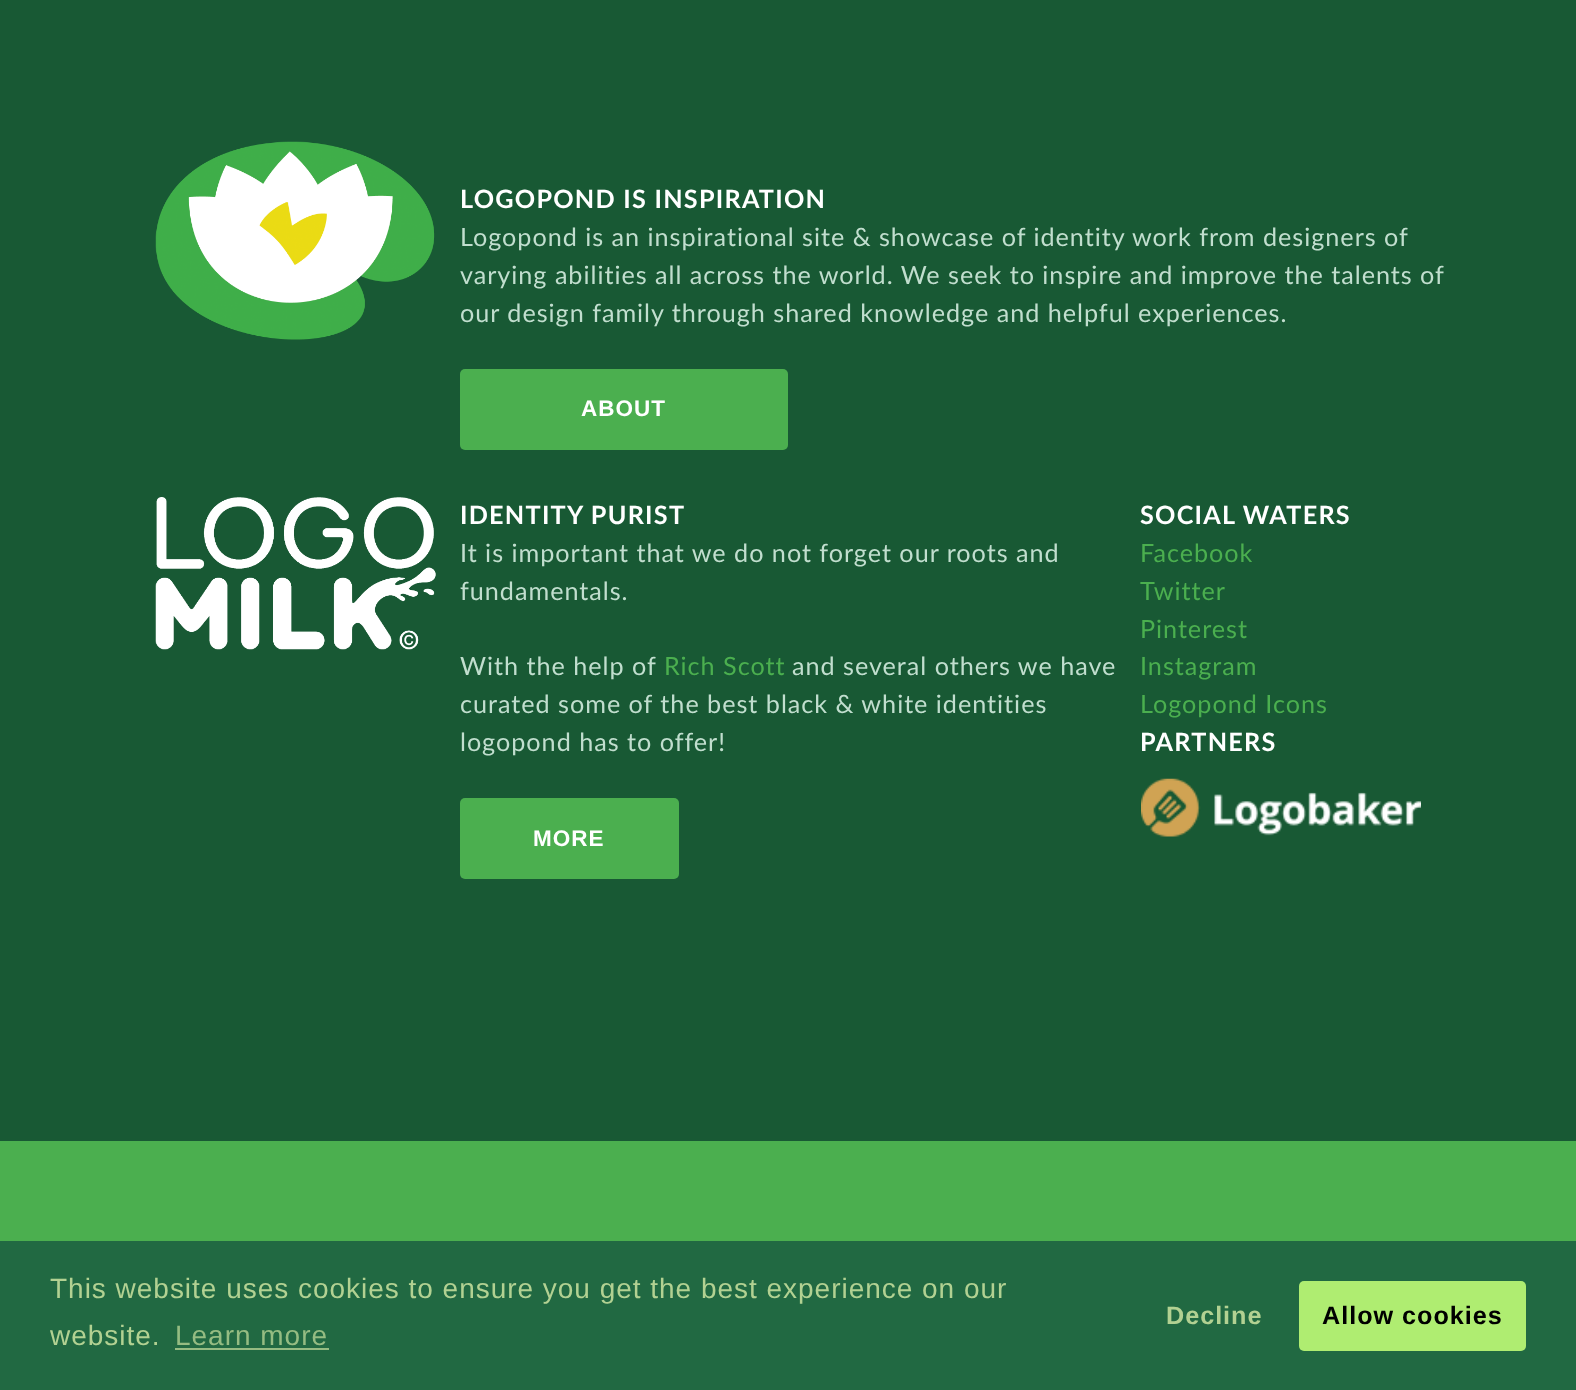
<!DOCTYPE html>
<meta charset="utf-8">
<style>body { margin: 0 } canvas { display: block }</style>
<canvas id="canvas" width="1576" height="1390"></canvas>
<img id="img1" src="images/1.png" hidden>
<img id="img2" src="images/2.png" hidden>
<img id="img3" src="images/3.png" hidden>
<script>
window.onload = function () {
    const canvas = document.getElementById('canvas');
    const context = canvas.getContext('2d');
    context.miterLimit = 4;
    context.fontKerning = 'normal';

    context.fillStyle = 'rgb(24, 89, 52)';
    context.fillRect(0, 0, 1576, 1390);
    context.drawImage(document.getElementById('img1'), 155, 141, 280, 199);
    context.fillStyle = 'rgb(75, 175, 79)';
    context.beginPath();
    context.roundRect(460, 369, 328, 81, 5);
    context.fill();
    context.drawImage(document.getElementById('img2'), 155, 497, 281, 153);
    context.beginPath();
    context.roundRect(460, 798, 219, 81, 5);
    context.fill();
    context.drawImage(document.getElementById('img3'), 1141, 778, 280, 59);
    context.fillRect(0, 1141, 1576, 100);
    context.fillStyle = 'rgb(33, 105, 66)';
    context.fillRect(0, 1241, 1576, 149);
    context.fillStyle = 'rgb(149, 188, 130)';
    context.fillRect(175, 1348, 154, 2);
    context.fillStyle = 'rgb(175, 237, 113)';
    context.beginPath();
    context.roundRect(1299, 1281, 227, 70, 5);
    context.fill();
    context.letterSpacing = '1.25px';
    context.font = 'bold 25.2px Lato';
    context.fillStyle = 'rgb(255, 255, 255)';
    context.fillText('LOGOPOND IS INSPIRATION', 460, 208);
    context.letterSpacing = '0.98px';
    context.font = '25.2px Lato';
    context.fillStyle = 'rgb(193, 222, 206)';
    context.fillText('Logopond is an inspirational site & showcase of identity work from designers of', 460, 246);
    context.fillText('varying abilities all across the world. We seek to inspire and improve the talents of', 460, 284);
    context.fillText('our design family through shared knowledge and helpful experiences.', 460, 322);
    context.font = 'bold 22.5px Liberation Sans';
    context.fillStyle = 'rgb(255, 255, 255)';
    context.fillText('ABOUT', 581, 416);
    context.letterSpacing = '1.25px';
    context.font = 'bold 25.2px Lato';
    context.fillText('IDENTITY PURIST', 460, 524);
    context.letterSpacing = '0.98px';
    context.font = '25.2px Lato';
    context.fillStyle = 'rgb(193, 222, 206)';
    context.fillText('It is important that we do not forget our roots and', 460, 562);
    context.fillText('fundamentals.', 460, 600);
    context.fillText('With the help of', 460, 675);
    context.fillStyle = 'rgb(75, 175, 79)';
    context.fillText('Rich Scott', 664, 675);
    context.fillStyle = 'rgb(193, 222, 206)';
    context.fillText('and several others we have', 792, 675);
    context.fillText('curated some of the best black & white identities', 460, 713);
    context.fillText('logopond has to offer!', 460, 751);
    context.font = 'bold 22.5px Liberation Sans';
    context.fillStyle = 'rgb(255, 255, 255)';
    context.fillText('MORE', 533, 846);
    context.letterSpacing = '1.25px';
    context.font = 'bold 25.2px Lato';
    context.fillText('SOCIAL WATERS', 1140, 524);
    context.letterSpacing = '0.98px';
    context.font = '25.2px Lato';
    context.fillStyle = 'rgb(75, 175, 79)';
    context.fillText('Facebook', 1140, 562);
    context.fillText('Twitter', 1140, 600);
    context.fillText('Pinterest', 1140, 638);
    context.fillText('Instagram', 1140, 675);
    context.fillText('Logopond Icons', 1140, 713);
    context.letterSpacing = '1.25px';
    context.font = 'bold 25.2px Lato';
    context.fillStyle = 'rgb(255, 255, 255)';
    context.fillText('PARTNERS', 1140, 751);
    context.letterSpacing = '0.98px';
    context.font = '28px Liberation Sans';
    context.fillStyle = 'rgb(178, 209, 146)';
    context.fillText('This website uses cookies to ensure you get the best experience on our', 50, 1298);
    context.fillText('website.', 50, 1345);
    context.fillStyle = 'rgb(149, 188, 130)';
    context.fillText('Learn more', 175, 1345);
    context.font = 'bold 25.2px Liberation Sans';
    context.fillStyle = 'rgb(178, 209, 146)';
    context.fillText('Decline', 1166, 1324);
    context.fillStyle = 'rgb(0, 0, 0)';
    context.fillText('Allow cookies', 1322, 1324);
};
</script>
